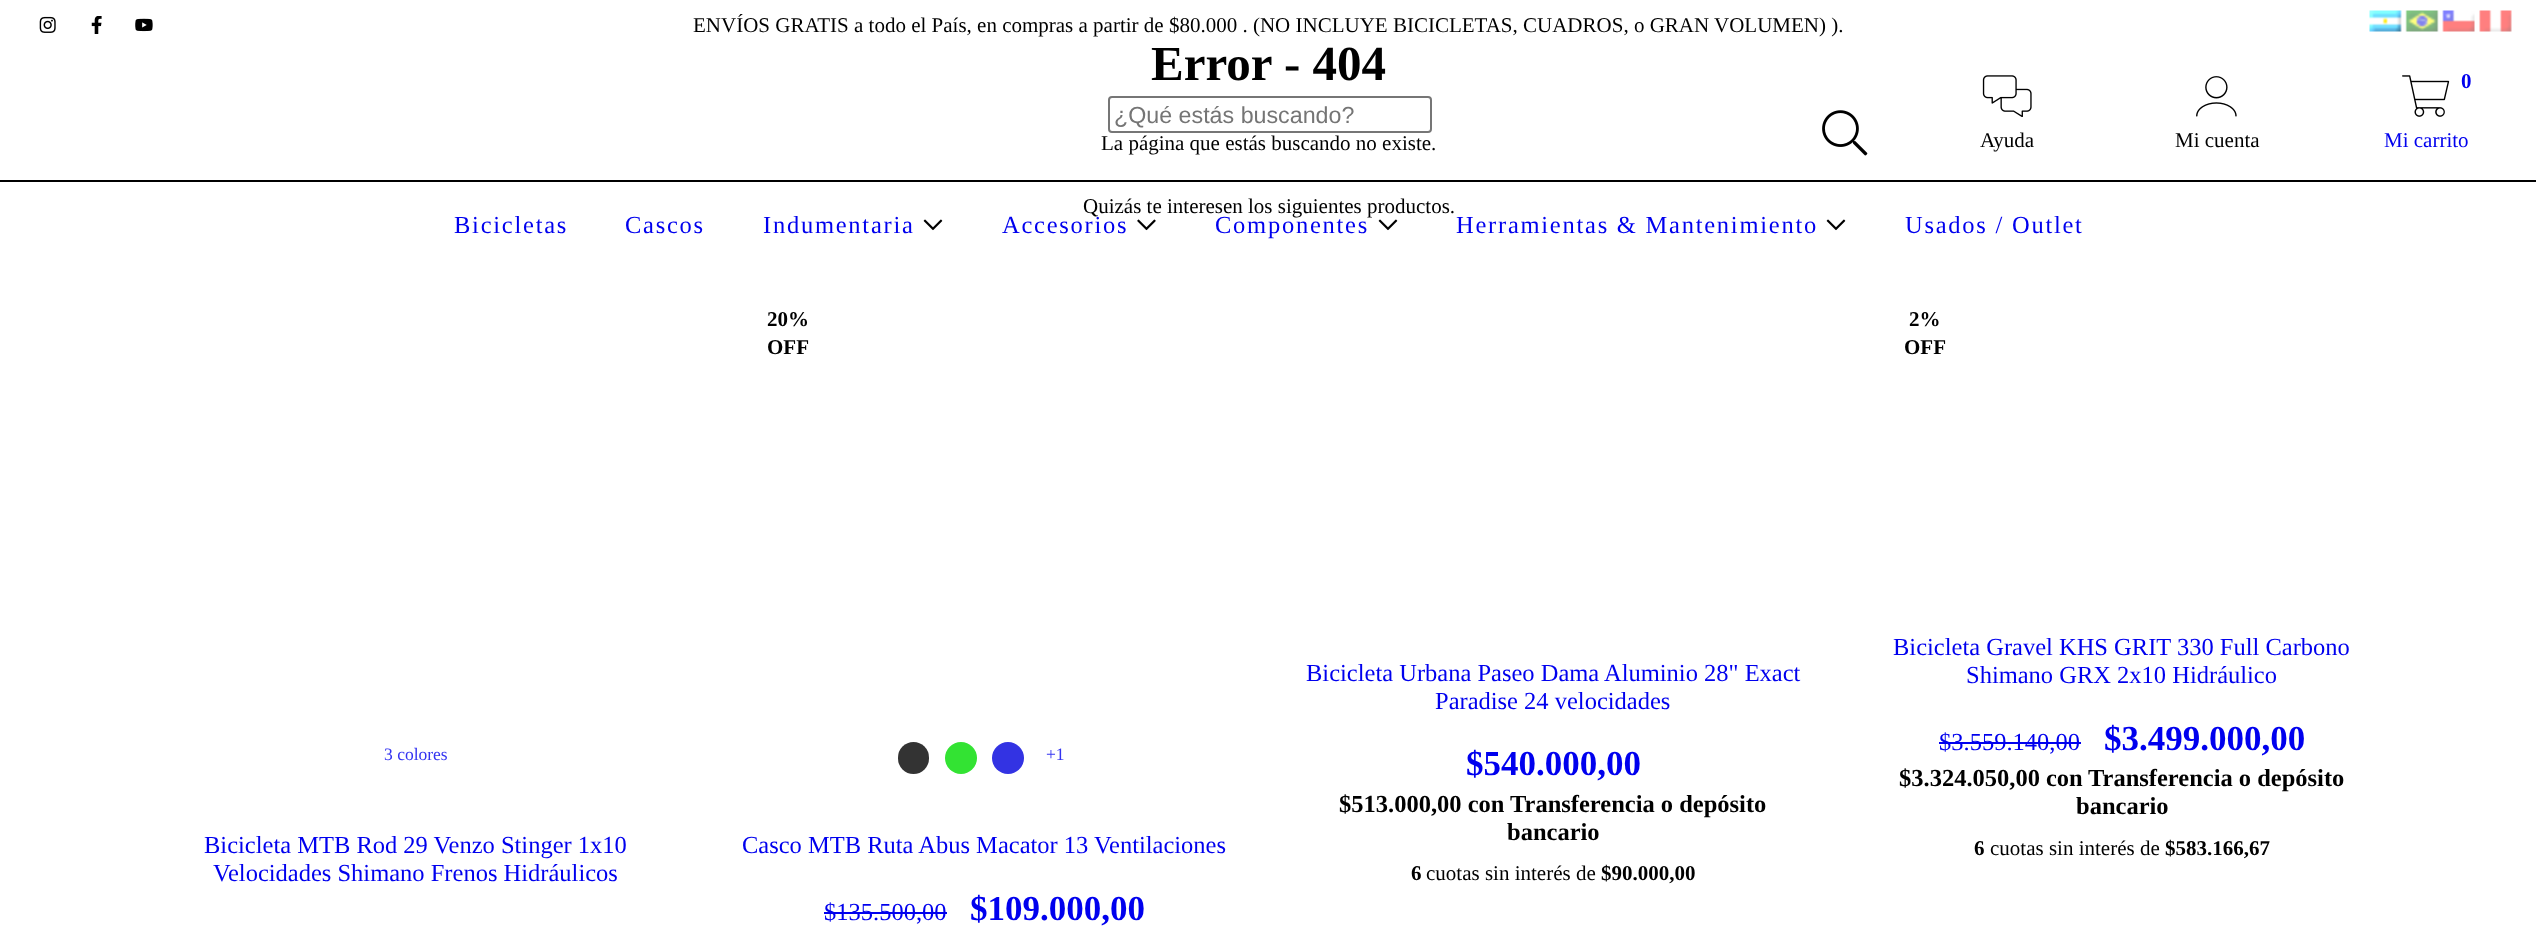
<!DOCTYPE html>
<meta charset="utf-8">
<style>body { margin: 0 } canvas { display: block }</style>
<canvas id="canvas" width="2536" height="935"></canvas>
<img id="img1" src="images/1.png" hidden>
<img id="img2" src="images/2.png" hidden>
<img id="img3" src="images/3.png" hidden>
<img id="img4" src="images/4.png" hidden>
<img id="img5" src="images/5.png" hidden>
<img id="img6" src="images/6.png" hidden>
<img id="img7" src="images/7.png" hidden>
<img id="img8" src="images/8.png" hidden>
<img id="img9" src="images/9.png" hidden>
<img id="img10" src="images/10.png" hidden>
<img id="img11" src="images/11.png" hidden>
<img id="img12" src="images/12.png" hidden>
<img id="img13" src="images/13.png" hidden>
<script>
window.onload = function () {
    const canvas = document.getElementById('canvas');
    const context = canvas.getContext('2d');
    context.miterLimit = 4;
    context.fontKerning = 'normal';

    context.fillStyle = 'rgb(255, 255, 255)';
    context.fillRect(0, 0, 2536, 935);
    context.drawImage(document.getElementById('img1'), 39, 16, 17, 17);
    context.drawImage(document.getElementById('img2'), 91, 16, 11, 18);
    context.drawImage(document.getElementById('img3'), 135, 18, 18, 14);
    context.drawImage(document.getElementById('img4'), 2369, 10, 33, 22);
    context.drawImage(document.getElementById('img5'), 2405, 10, 34, 22);
    context.drawImage(document.getElementById('img6'), 2442, 10, 33, 22);
    context.drawImage(document.getElementById('img7'), 2479, 10, 33, 22);
    context.beginPath();
    context.roundRect(1109, 97, 322, 35, 3);
    context.strokeStyle = 'rgb(118, 118, 118)';
    context.lineWidth = 2;
    context.stroke();
    context.drawImage(document.getElementById('img8'), 1822, 110, 46, 46);
    context.drawImage(document.getElementById('img9'), 1982, 75, 50, 42);
    context.drawImage(document.getElementById('img10'), 2196, 76, 41, 41);
    context.drawImage(document.getElementById('img11'), 2402, 75, 48, 42);
    context.fillStyle = 'rgb(0, 0, 0)';
    context.fillRect(0, 180, 2536, 2);
    context.drawImage(document.getElementById('img12'), 923, 219, 20, 12);
    context.drawImage(document.getElementById('img13'), 1137, 219, 19, 12);
    context.drawImage(document.getElementById('img12'), 1378, 219, 20, 12);
    context.drawImage(document.getElementById('img12'), 1826, 219, 20, 12);
    context.fillStyle = 'rgb(51, 51, 51)';
    context.beginPath();
    context.roundRect(898, 742, 31, 32, 15.5);
    context.fill();
    context.fillStyle = 'rgb(51, 227, 51)';
    context.beginPath();
    context.arc(961, 758, 16, 0, 2 * Math.PI);
    context.fill();
    context.fillStyle = 'rgb(51, 51, 227)';
    context.beginPath();
    context.arc(1008, 758, 16, 0, 2 * Math.PI);
    context.fill();
    context.fillStyle = 'rgb(0, 0, 238)';
    context.fillRect(824, 912, 123, 2);
    context.fillRect(1939, 742, 142, 2);
    context.font = '21px Liberation Serif';
    context.fillStyle = 'rgb(0, 0, 0)';
    context.fillText('ENVÍOS GRATIS a todo el País, en compras a partir de $80.000 . (NO INCLUYE BICICLETAS, CUADROS, o GRAN VOLUMEN) ).', 693, 32);
    context.font = '23.25px Liberation Sans';
    context.fillStyle = 'rgb(117, 117, 117)';
    context.fillText('¿Qué estás buscando?', 1114, 123);
    context.font = '21px Liberation Serif';
    context.fillStyle = 'rgb(0, 0, 0)';
    context.fillText('Ayuda', 1980, 147);
    context.fillText('Mi cuenta', 2175, 147);
    context.font = 'bold 21px Liberation Serif';
    context.fillStyle = 'rgb(0, 0, 238)';
    context.fillText('0', 2461, 88);
    context.font = '21px Liberation Serif';
    context.fillText('Mi carrito', 2384, 147);
    context.letterSpacing = '1.75px';
    context.font = '24.5px Liberation Serif';
    context.fillText('Bicicletas', 454, 233);
    context.fillText('Cascos', 625, 233);
    context.fillText('Indumentaria', 763, 233);
    context.fillText('Accesorios', 1002, 233);
    context.fillText('Componentes', 1215, 233);
    context.fillText('Herramientas & Mantenimiento', 1456, 233);
    context.fillText('Usados / Outlet', 1905, 233);
    context.letterSpacing = '0px';
    context.font = 'bold 49px Liberation Serif';
    context.fillStyle = 'rgb(0, 0, 0)';
    context.fillText('Error - 404', 1151, 80);
    context.font = '21px Liberation Serif';
    context.fillText('La página que estás buscando no existe.', 1101, 150);
    context.fillText('Quizás te interesen los siguientes productos.', 1083, 213);
    context.font = '17.5px Liberation Serif';
    context.fillStyle = 'rgb(51, 51, 241)';
    context.fillText('3 colores', 384, 760);
    context.font = '24.5px Liberation Serif';
    context.fillStyle = 'rgb(0, 0, 238)';
    context.fillText('Bicicleta MTB Rod 29 Venzo Stinger 1x10', 204, 853);
    context.fillText('Velocidades Shimano Frenos Hidráulicos', 213, 881);
    context.font = 'bold 21px Liberation Serif';
    context.fillStyle = 'rgb(0, 0, 0)';
    context.fillText('20%', 767, 326);
    context.fillText('OFF', 767, 354);
    context.font = '17.5px Liberation Serif';
    context.fillStyle = 'rgb(51, 51, 241)';
    context.fillText('+1', 1046, 760);
    context.font = '24.5px Liberation Serif';
    context.fillStyle = 'rgb(0, 0, 238)';
    context.fillText('Casco MTB Ruta Abus Macator 13 Ventilaciones', 742, 853);
    context.fillText('$135.500,00', 824, 920);
    context.font = 'bold 35px Liberation Serif';
    context.fillText('$109.000,00', 970, 920);
    context.font = '24.5px Liberation Serif';
    context.fillText('Bicicleta Urbana Paseo Dama Aluminio 28" Exact', 1306, 681);
    context.fillText('Paradise 24 velocidades', 1435, 709);
    context.font = 'bold 35px Liberation Serif';
    context.fillText('$540.000,00', 1466, 775);
    context.font = 'bold 24.5px Liberation Serif';
    context.fillStyle = 'rgb(0, 0, 0)';
    context.fillText('$513.000,00 con', 1339, 812);
    context.fillText('Transferencia o depósito', 1510, 812);
    context.fillText('bancario', 1507, 840);
    context.font = 'bold 21px Liberation Serif';
    context.fillText('6', 1411, 880);
    context.font = '21px Liberation Serif';
    context.fillText('cuotas sin interés de', 1426, 880);
    context.font = 'bold 21px Liberation Serif';
    context.fillText('$90.000,00', 1601, 880);
    context.fillText('2%', 1909, 326);
    context.fillText('OFF', 1904, 354);
    context.font = '24.5px Liberation Serif';
    context.fillStyle = 'rgb(0, 0, 238)';
    context.fillText('Bicicleta Gravel KHS GRIT 330 Full Carbono', 1893, 655);
    context.fillText('Shimano GRX 2x10 Hidráulico', 1966, 683);
    context.fillText('$3.559.140,00', 1939, 750);
    context.font = 'bold 35px Liberation Serif';
    context.fillText('$3.499.000,00', 2104, 750);
    context.font = 'bold 24.5px Liberation Serif';
    context.fillStyle = 'rgb(0, 0, 0)';
    context.fillText('$3.324.050,00 con', 1899, 786);
    context.fillText('Transferencia o depósito', 2088, 786);
    context.fillText('bancario', 2076, 814);
    context.font = 'bold 21px Liberation Serif';
    context.fillText('6', 1974, 855);
    context.font = '21px Liberation Serif';
    context.fillText('cuotas sin interés de', 1990, 855);
    context.font = 'bold 21px Liberation Serif';
    context.fillText('$583.166,67', 2165, 855);
};
</script>
